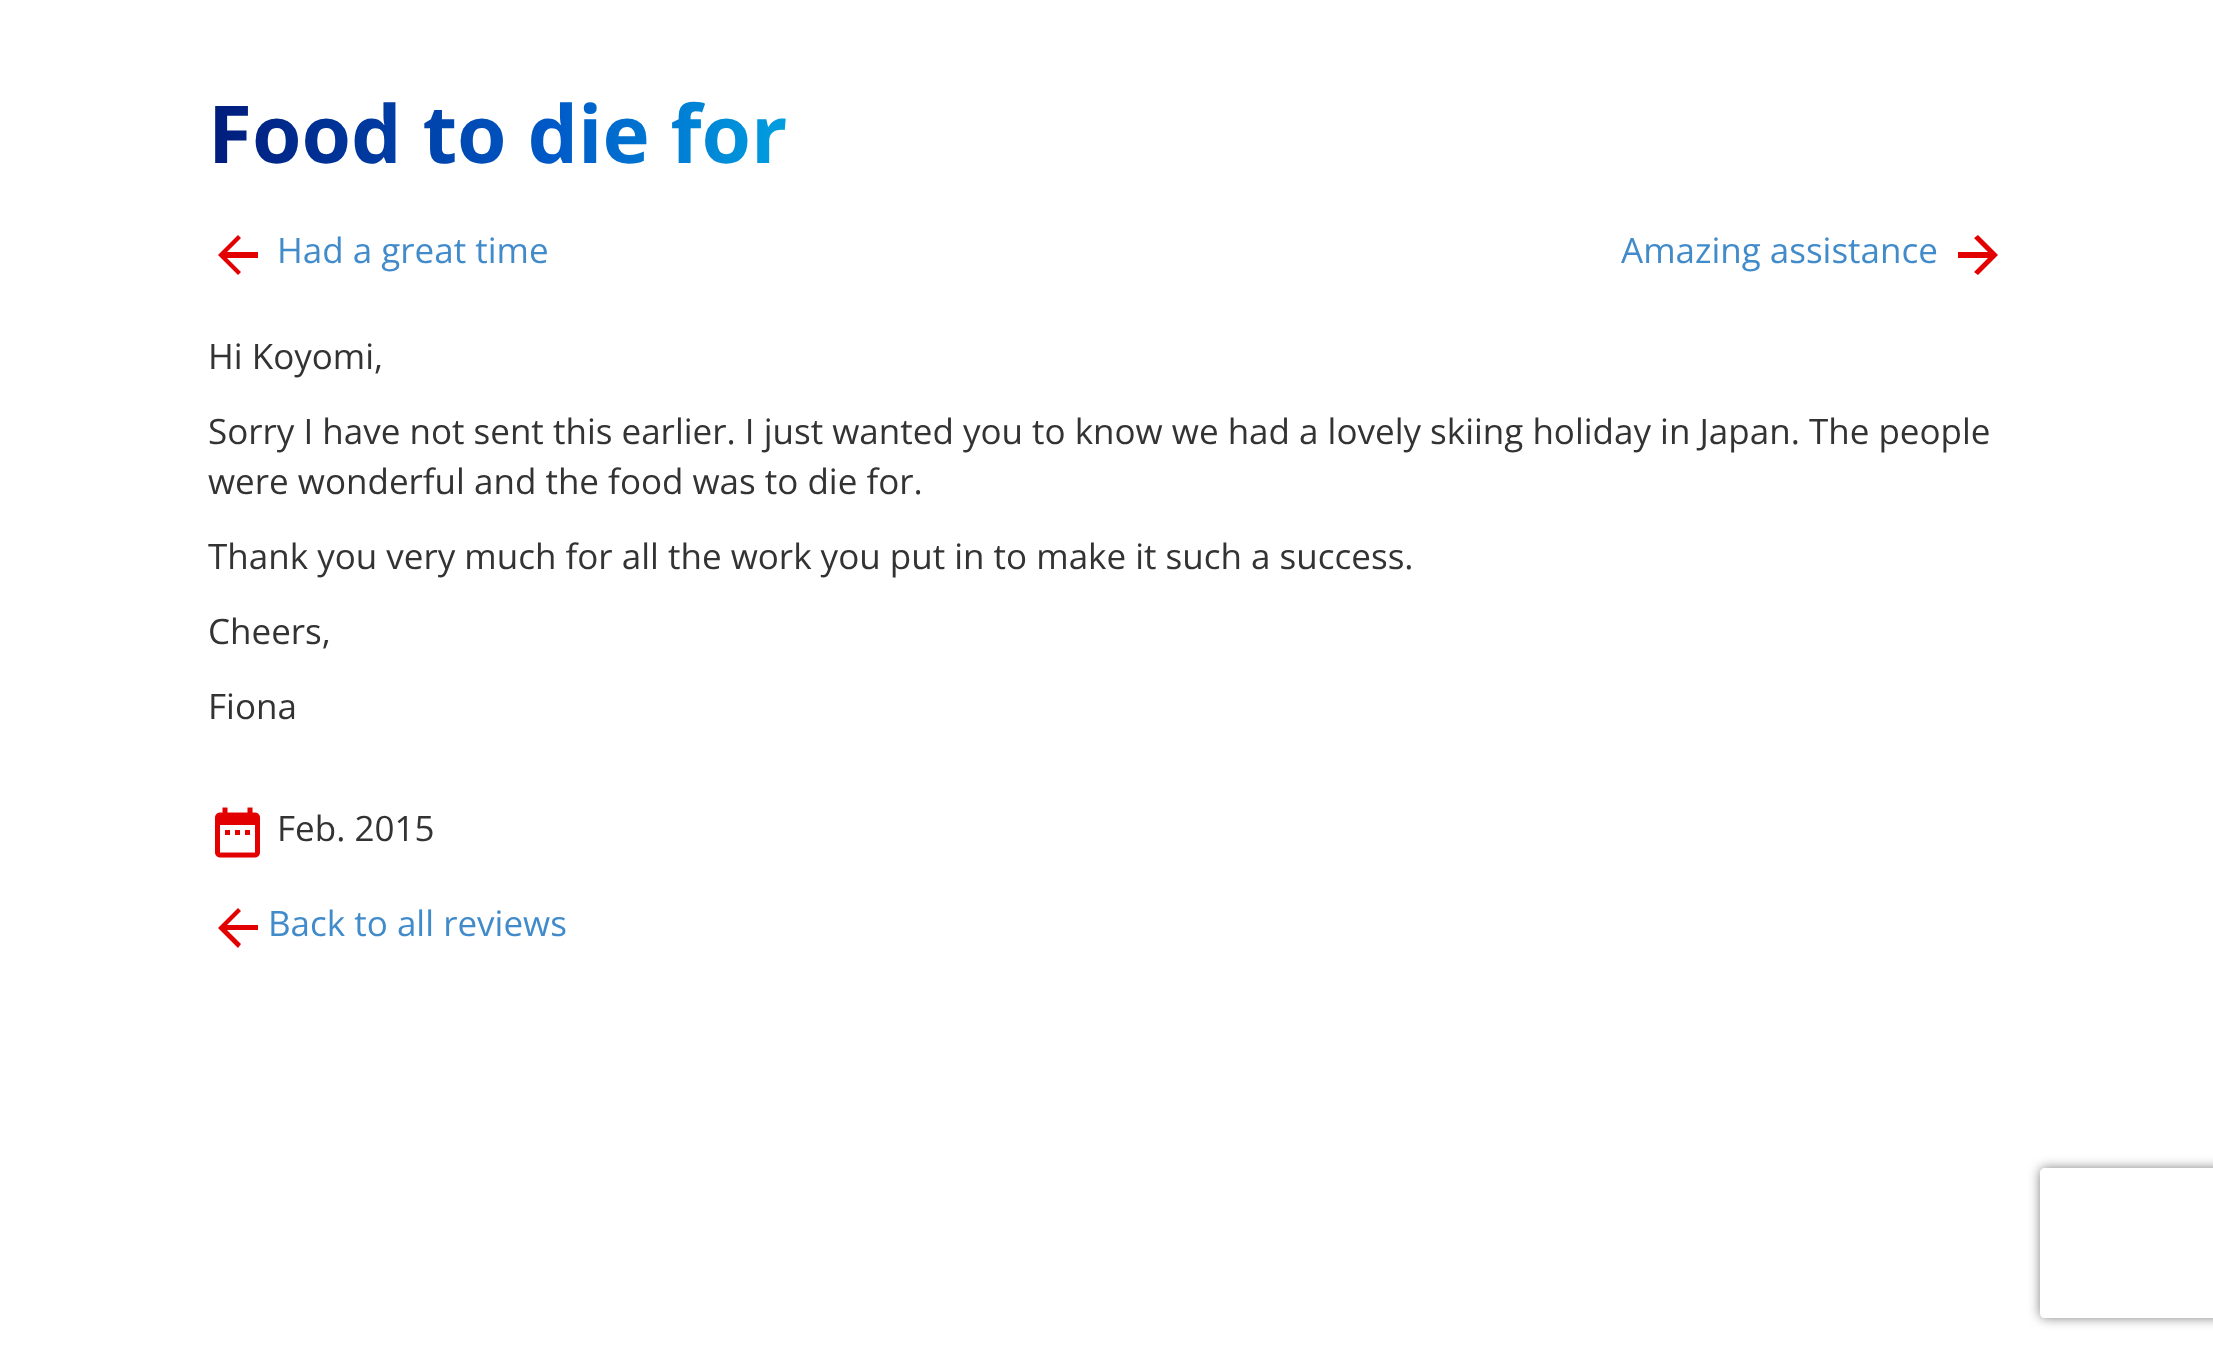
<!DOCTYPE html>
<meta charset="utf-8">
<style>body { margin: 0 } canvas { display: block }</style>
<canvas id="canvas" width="2213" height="1352"></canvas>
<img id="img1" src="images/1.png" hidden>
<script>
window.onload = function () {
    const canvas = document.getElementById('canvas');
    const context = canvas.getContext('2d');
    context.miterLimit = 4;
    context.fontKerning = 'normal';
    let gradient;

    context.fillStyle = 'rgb(255, 255, 255)';
    context.fillRect(0, 0, 2213, 1352);
    context.fillStyle = 'rgb(226, 0, 0)';
    context.beginPath();
    context.moveTo(218, 255);
    context.lineTo(238, 275);
    context.lineTo(241, 272);
    context.lineTo(227, 258);
    context.lineTo(258, 258);
    context.lineTo(258, 252);
    context.lineTo(227, 252);
    context.lineTo(241, 238);
    context.lineTo(238, 235);
    context.closePath();
    context.fill();
    context.beginPath();
    context.moveTo(1978, 235);
    context.lineTo(1974, 238);
    context.lineTo(1988, 252);
    context.lineTo(1958, 252);
    context.lineTo(1958, 258);
    context.lineTo(1988, 258);
    context.lineTo(1974, 272);
    context.lineTo(1978, 275);
    context.lineTo(1998, 255);
    context.closePath();
    context.fill();
    context.drawImage(document.getElementById('img1'), 215, 807, 45, 51);
    context.beginPath();
    context.moveTo(218, 928);
    context.lineTo(238, 948);
    context.lineTo(241, 944);
    context.lineTo(227, 930);
    context.lineTo(258, 930);
    context.lineTo(258, 925);
    context.lineTo(227, 925);
    context.lineTo(241, 911);
    context.lineTo(238, 908);
    context.closePath();
    context.fill();
    context.save();
    context.beginPath();
    context.moveTo(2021, 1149);
    context.lineTo(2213, 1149);
    context.lineTo(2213, 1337);
    context.lineTo(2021, 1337);
    context.closePath();
    context.moveTo(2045, 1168);
    context.lineTo(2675, 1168);
    context.bezierCurveTo(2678, 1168, 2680, 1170, 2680, 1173);
    context.lineTo(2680, 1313);
    context.bezierCurveTo(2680, 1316, 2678, 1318, 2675, 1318);
    context.lineTo(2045, 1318);
    context.bezierCurveTo(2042, 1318, 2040, 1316, 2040, 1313);
    context.lineTo(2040, 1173);
    context.bezierCurveTo(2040, 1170, 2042, 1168, 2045, 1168);
    context.closePath();
    context.clip('evenodd');
    context.fillStyle = 'rgb(128, 128, 128)';
    context.filter = 'blur(6px)';
    context.beginPath();
    context.roundRect(2040, 1168, 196, 150, 5);
    context.fill();
    context.filter = 'none';
    context.restore();
    context.font = 'bold 80px Open Sans';
    gradient = context.createLinearGradient(208, 132, 787, 132);
    gradient.addColorStop(0, 'rgb(0, 28, 123)');
    gradient.addColorStop(0.6, 'rgb(0, 90, 200)');
    gradient.addColorStop(1, 'rgb(0, 159, 223)');
    context.fillStyle = gradient;
    context.fillText('Food to die for', 208, 163);
    context.font = '35px Open Sans';
    context.fillStyle = 'rgb(66, 139, 202)';
    context.fillText('Had a great time', 277, 263);
    context.fillText('Amazing assistance', 1621, 263);
    context.fillStyle = 'rgb(51, 51, 51)';
    context.fillText('Hi Koyomi,', 208, 369);
    context.fillText('Sorry I have not sent this earlier. I just wanted you to know we had a lovely skiing holiday in Japan. The people', 208, 444);
    context.fillText('were wonderful and the food was to die for.', 208, 494);
    context.fillText('Thank you very much for all the work you put in to make it such a success.', 208, 569);
    context.fillText('Cheers,', 208, 644);
    context.fillText('Fiona', 208, 719);
    context.fillText('Feb. 2015', 277, 841);
    context.fillStyle = 'rgb(66, 139, 202)';
    context.fillText('Back to all reviews', 268, 936);
};
</script>
